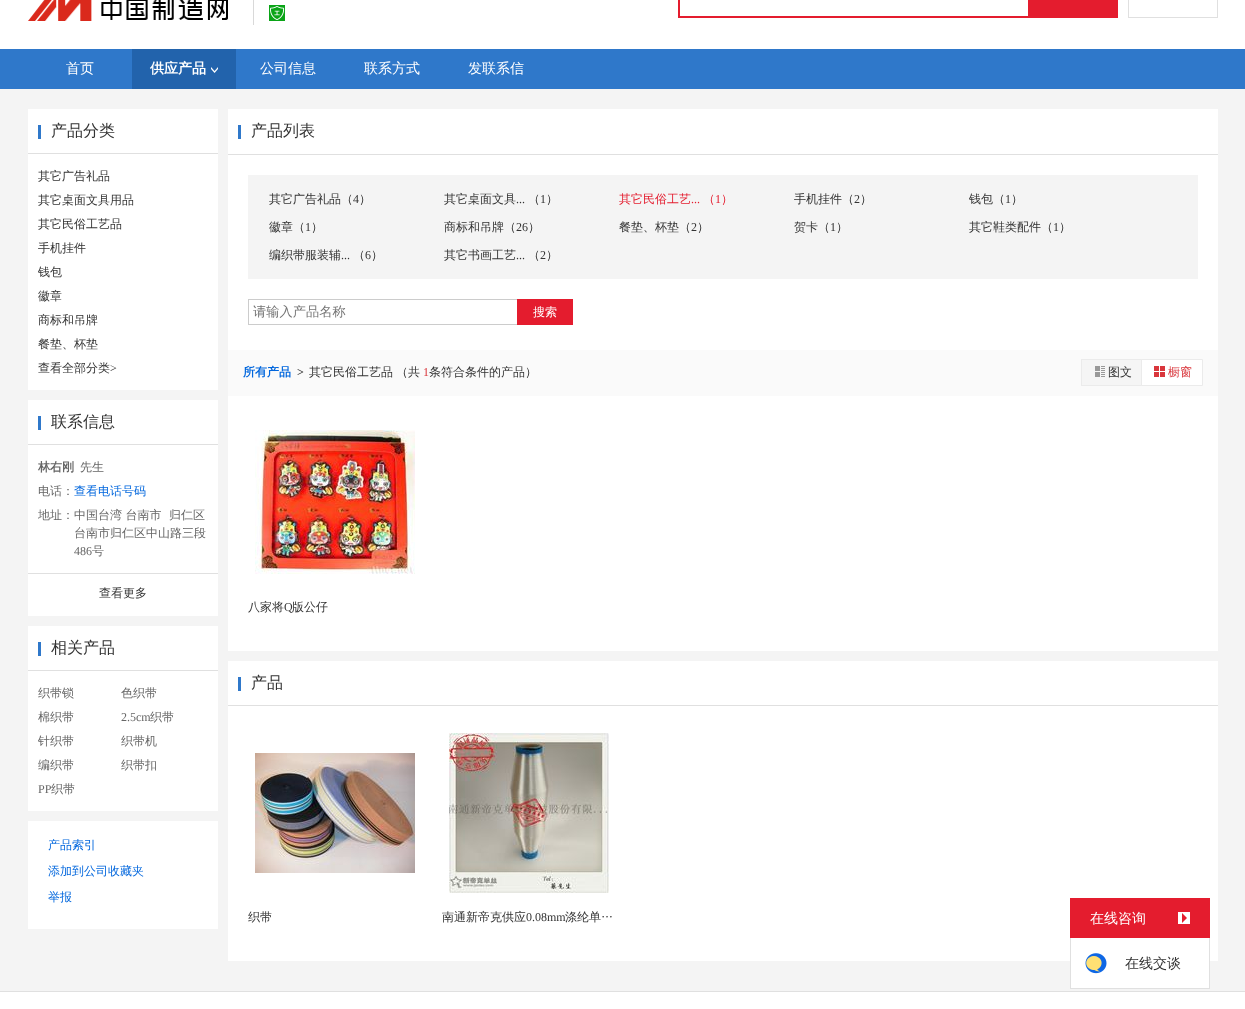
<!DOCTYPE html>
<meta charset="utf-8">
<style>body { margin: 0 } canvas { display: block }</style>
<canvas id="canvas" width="1245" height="1009"></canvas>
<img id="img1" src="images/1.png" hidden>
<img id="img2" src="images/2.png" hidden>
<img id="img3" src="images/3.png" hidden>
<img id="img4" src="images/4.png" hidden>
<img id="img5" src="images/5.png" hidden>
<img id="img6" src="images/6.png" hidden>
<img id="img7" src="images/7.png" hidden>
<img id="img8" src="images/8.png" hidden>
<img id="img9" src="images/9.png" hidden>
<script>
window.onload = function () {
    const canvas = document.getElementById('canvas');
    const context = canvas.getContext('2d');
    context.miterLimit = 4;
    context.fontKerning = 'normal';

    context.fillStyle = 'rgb(244, 244, 244)';
    context.fillRect(0, 0, 1245, 1009);
    context.fillStyle = 'rgb(255, 255, 255)';
    context.fillRect(0, 0, 1245, 49);
    context.drawImage(document.getElementById('img1'), 28, 0, 200, 21);
    context.fillStyle = 'rgb(217, 217, 217)';
    context.fillRect(253, 0, 1, 25);
    context.drawImage(document.getElementById('img2'), 269, 5, 16, 16);
    context.fillStyle = 'rgb(228, 28, 46)';
    context.fillRect(678, 16, 350, 2);
    context.fillRect(678, 0, 2, 18);
    context.fillRect(1028, 0, 90, 18);
    context.strokeStyle = 'rgb(224, 224, 224)';
    context.strokeRect(1128.5, -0.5, 89, 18);
    context.fillStyle = 'rgb(47, 120, 202)';
    context.fillRect(0, 49, 1245, 40);
    context.fillStyle = 'rgb(34, 99, 172)';
    context.fillRect(132, 49, 104, 40);
    context.drawImage(document.getElementById('img3'), 211, 67, 7, 6);
    context.fillStyle = 'rgb(255, 255, 255)';
    context.fillRect(28, 109, 190, 281);
    context.fillStyle = 'rgb(224, 224, 224)';
    context.fillRect(28, 153, 190, 1);
    context.fillStyle = 'rgb(47, 120, 202)';
    context.fillRect(38, 125, 3, 14);
    context.fillStyle = 'rgb(255, 255, 255)';
    context.fillRect(28, 400, 190, 216);
    context.fillStyle = 'rgb(224, 224, 224)';
    context.fillRect(28, 444, 190, 1);
    context.fillStyle = 'rgb(47, 120, 202)';
    context.fillRect(38, 416, 3, 14);
    context.fillStyle = 'rgb(224, 224, 224)';
    context.fillRect(28, 573, 190, 1);
    context.fillStyle = 'rgb(255, 255, 255)';
    context.fillRect(28, 626, 190, 185);
    context.fillStyle = 'rgb(224, 224, 224)';
    context.fillRect(28, 670, 190, 1);
    context.fillStyle = 'rgb(47, 120, 202)';
    context.fillRect(38, 642, 3, 14);
    context.fillStyle = 'rgb(255, 255, 255)';
    context.fillRect(28, 821, 190, 108);
    context.fillRect(228, 109, 990, 542);
    context.fillStyle = 'rgb(224, 224, 224)';
    context.fillRect(228, 154, 990, 1);
    context.fillStyle = 'rgb(47, 120, 202)';
    context.fillRect(238, 125, 3, 14);
    context.fillStyle = 'rgb(244, 244, 244)';
    context.fillRect(248, 175, 950, 104);
    context.fillStyle = 'rgb(204, 204, 204)';
    context.fillRect(248, 299, 269, 1);
    context.fillRect(248, 324, 269, 1);
    context.fillRect(248, 299, 1, 26);
    context.fillStyle = 'rgb(228, 28, 46)';
    context.fillRect(517, 299, 56, 26);
    context.fillStyle = 'rgb(250, 250, 250)';
    context.fillRect(228, 350, 990, 46);
    context.fillStyle = 'rgb(245, 245, 245)';
    context.fillRect(1082, 360, 59, 25);
    context.strokeStyle = 'rgb(235, 235, 235)';
    context.strokeRect(1081.5, 359.5, 61, 26);
    context.drawImage(document.getElementById('img4'), 1095, 366, 10, 11);
    context.fillStyle = 'rgb(255, 255, 255)';
    context.beginPath();
    context.rect(1141.5, 359.5, 61, 26);
    context.fill();
    context.stroke();
    context.drawImage(document.getElementById('img5'), 1154, 366, 11, 11);
    context.drawImage(document.getElementById('img6'), 255, 430, 160, 144);
    context.fillRect(228, 661, 990, 300);
    context.fillStyle = 'rgb(224, 224, 224)';
    context.fillRect(228, 705, 990, 1);
    context.fillStyle = 'rgb(47, 120, 202)';
    context.fillRect(238, 677, 3, 14);
    context.drawImage(document.getElementById('img7'), 255, 753, 160, 120);
    context.drawImage(document.getElementById('img8'), 449, 733, 160, 160);
    context.fillStyle = 'rgb(255, 255, 255)';
    context.fillRect(0, 992, 1245, 17);
    context.fillStyle = 'rgb(224, 224, 224)';
    context.fillRect(0, 991, 1245, 1);
    context.fillStyle = 'rgb(228, 28, 46)';
    context.fillRect(1070, 898, 140, 40);
    context.fillStyle = 'rgb(255, 255, 255)';
    context.fillRect(1178, 912, 12, 12);
    context.fillStyle = 'rgb(228, 28, 46)';
    context.beginPath();
    context.moveTo(1182, 923);
    context.lineTo(1182, 913);
    context.lineTo(1187, 918);
    context.closePath();
    context.fill();
    context.fillStyle = 'rgb(255, 255, 255)';
    context.fillRect(1071, 961, 138, 27);
    context.fillStyle = 'rgb(224, 224, 224)';
    context.fillRect(1209, 938, 1, 51);
    context.fillRect(1070, 988, 140, 1);
    context.fillRect(1070, 938, 1, 51);
    context.drawImage(document.getElementById('img9'), 1085, 953, 22, 21);
    context.font = '500 14px WenQuanYi Zen Hei';
    context.fillStyle = 'rgb(255, 255, 255)';
    context.fillText('首页', 66, 73);
    context.font = 'bold 14px WenQuanYi Zen Hei';
    context.fillText('供应产品', 150, 73);
    context.font = '500 14px WenQuanYi Zen Hei';
    context.fillText('公司信息', 260, 73);
    context.fillText('联系方式', 364, 73);
    context.fillText('发联系信', 468, 73);
    context.font = '500 16px WenQuanYi Zen Hei';
    context.fillStyle = 'rgb(51, 51, 51)';
    context.fillText('产品分类', 51, 136);
    context.font = '500 12px WenQuanYi Zen Hei';
    context.fillText('其它广告礼品', 38, 180);
    context.fillText('其它桌面文具用品', 38, 204);
    context.fillText('其它民俗工艺品', 38, 228);
    context.fillText('手机挂件', 38, 252);
    context.fillText('钱包', 38, 276);
    context.save();
    context.beginPath();
    context.rect(38, 284, 168, 24);
    context.clip();
    context.fillText('徽章', 38, 300);
    context.restore();
    context.fillText('商标和吊牌', 38, 324);
    context.fillText('餐垫、杯垫', 38, 348);
    context.fillText('查看全部分类', 38, 372);
    context.font = '12px Liberation Serif';
    context.fillText('>', 110, 372);
    context.font = '500 16px WenQuanYi Zen Hei';
    context.fillText('联系信息', 51, 427);
    context.font = 'bold 12px WenQuanYi Zen Hei';
    context.fillStyle = 'rgb(102, 102, 102)';
    context.fillText('林右刚', 38, 471);
    context.font = '500 12px WenQuanYi Zen Hei';
    context.fillText('先生', 80, 471);
    context.fillText('电话：', 38, 495);
    context.fillStyle = 'rgb(0, 102, 221)';
    context.fillText('查看电话号码', 74, 495);
    context.fillStyle = 'rgb(102, 102, 102)';
    context.fillText('地址：', 38, 519);
    context.fillText('中国台湾 台南市', 74, 519);
    context.fillText('归仁区', 169, 519);
    context.fillText('台南市归仁区中山路三段', 74, 537);
    context.font = '12px Liberation Serif';
    context.fillText('486', 74, 555);
    context.font = '500 12px WenQuanYi Zen Hei';
    context.fillText('号', 92, 555);
    context.fillStyle = 'rgb(51, 51, 51)';
    context.fillText('查看更多', 99, 597);
    context.font = '500 16px WenQuanYi Zen Hei';
    context.fillText('相关产品', 51, 653);
    context.save();
    context.beginPath();
    context.rect(38, 681, 76, 24);
    context.clip();
    context.font = '500 12px WenQuanYi Zen Hei';
    context.fillStyle = 'rgb(102, 102, 102)';
    context.fillText('织带锁', 38, 697);
    context.restore();
    context.font = '500 12px WenQuanYi Zen Hei';
    context.fillStyle = 'rgb(102, 102, 102)';
    context.fillText('色织带', 121, 697);
    context.fillText('棉织带', 38, 721);
    context.font = '12px Liberation Serif';
    context.fillText('2.5cm', 121, 721);
    context.font = '500 12px WenQuanYi Zen Hei';
    context.fillText('织带', 150, 721);
    context.fillText('针织带', 38, 745);
    context.save();
    context.beginPath();
    context.rect(121, 729, 76, 24);
    context.clip();
    context.fillText('织带机', 121, 745);
    context.restore();
    context.save();
    context.beginPath();
    context.rect(38, 753, 76, 24);
    context.clip();
    context.fillText('编织带', 38, 769);
    context.restore();
    context.save();
    context.beginPath();
    context.rect(121, 753, 76, 24);
    context.clip();
    context.fillText('织带扣', 121, 769);
    context.restore();
    context.font = '12px Liberation Serif';
    context.fillText('PP', 38, 793);
    context.font = '500 12px WenQuanYi Zen Hei';
    context.fillText('织带', 51, 793);
    context.fillStyle = 'rgb(0, 102, 221)';
    context.fillText('产品索引', 48, 849);
    context.fillText('添加到公司收藏夹', 48, 875);
    context.fillText('举报', 48, 901);
    context.font = '500 16px WenQuanYi Zen Hei';
    context.fillStyle = 'rgb(51, 51, 51)';
    context.fillText('产品列表', 251, 136);
    context.font = '500 12px WenQuanYi Zen Hei';
    context.fillText('其它广告礼品（', 269, 203);
    context.font = '12px Liberation Serif';
    context.fillText('4', 353, 203);
    context.font = '500 12px WenQuanYi Zen Hei';
    context.fillText('）', 359, 203);
    context.fillText('其它桌面文具', 444, 203);
    context.font = '12px Liberation Serif';
    context.fillText('...', 516, 203);
    context.font = '500 12px WenQuanYi Zen Hei';
    context.fillText('（', 528, 203);
    context.font = '12px Liberation Serif';
    context.fillText('1', 540, 203);
    context.font = '500 12px WenQuanYi Zen Hei';
    context.fillText('）', 546, 203);
    context.fillStyle = 'rgb(228, 28, 46)';
    context.fillText('其它民俗工艺', 619, 203);
    context.font = '12px Liberation Serif';
    context.fillText('...', 691, 203);
    context.font = '500 12px WenQuanYi Zen Hei';
    context.fillText('（', 703, 203);
    context.font = '12px Liberation Serif';
    context.fillText('1', 715, 203);
    context.font = '500 12px WenQuanYi Zen Hei';
    context.fillText('）', 721, 203);
    context.fillStyle = 'rgb(51, 51, 51)';
    context.fillText('手机挂件（', 794, 203);
    context.font = '12px Liberation Serif';
    context.fillText('2', 854, 203);
    context.font = '500 12px WenQuanYi Zen Hei';
    context.fillText('）', 860, 203);
    context.fillText('钱包（', 969, 203);
    context.font = '12px Liberation Serif';
    context.fillText('1', 1005, 203);
    context.font = '500 12px WenQuanYi Zen Hei';
    context.fillText('）', 1011, 203);
    context.fillText('徽章（', 269, 231);
    context.font = '12px Liberation Serif';
    context.fillText('1', 305, 231);
    context.font = '500 12px WenQuanYi Zen Hei';
    context.fillText('）', 311, 231);
    context.fillText('商标和吊牌（', 444, 231);
    context.font = '12px Liberation Serif';
    context.fillText('26', 516, 231);
    context.font = '500 12px WenQuanYi Zen Hei';
    context.fillText('）', 528, 231);
    context.fillText('餐垫、杯垫（', 619, 231);
    context.font = '12px Liberation Serif';
    context.fillText('2', 691, 231);
    context.font = '500 12px WenQuanYi Zen Hei';
    context.fillText('）', 697, 231);
    context.fillText('贺卡（', 794, 231);
    context.font = '12px Liberation Serif';
    context.fillText('1', 830, 231);
    context.font = '500 12px WenQuanYi Zen Hei';
    context.fillText('）', 836, 231);
    context.fillText('其它鞋类配件（', 969, 231);
    context.font = '12px Liberation Serif';
    context.fillText('1', 1053, 231);
    context.font = '500 12px WenQuanYi Zen Hei';
    context.fillText('）', 1059, 231);
    context.fillText('编织带服装辅', 269, 259);
    context.font = '12px Liberation Serif';
    context.fillText('...', 341, 259);
    context.font = '500 12px WenQuanYi Zen Hei';
    context.fillText('（', 353, 259);
    context.font = '12px Liberation Serif';
    context.fillText('6', 365, 259);
    context.font = '500 12px WenQuanYi Zen Hei';
    context.fillText('）', 371, 259);
    context.fillText('其它书画工艺', 444, 259);
    context.font = '12px Liberation Serif';
    context.fillText('...', 516, 259);
    context.font = '500 12px WenQuanYi Zen Hei';
    context.fillText('（', 528, 259);
    context.font = '12px Liberation Serif';
    context.fillText('2', 540, 259);
    context.font = '500 12px WenQuanYi Zen Hei';
    context.fillText('）', 546, 259);
    context.font = '500 13.25px WenQuanYi Zen Hei';
    context.fillStyle = 'rgb(117, 117, 117)';
    context.fillText('请输入产品名称', 253, 316);
    context.font = '500 12px WenQuanYi Zen Hei';
    context.fillStyle = 'rgb(255, 255, 255)';
    context.fillText('搜索', 533, 316);
    context.font = 'bold 12px WenQuanYi Zen Hei';
    context.fillStyle = 'rgb(0, 102, 221)';
    context.fillText('所有产品', 243, 376);
    context.font = 'bold 12px Liberation Serif';
    context.fillStyle = 'rgb(51, 51, 51)';
    context.fillText('>', 297, 376);
    context.font = '500 12px WenQuanYi Zen Hei';
    context.fillText('其它民俗工艺品', 309, 376);
    context.fillText('（共', 396, 376);
    context.font = '12px Liberation Serif';
    context.fillStyle = 'rgb(217, 54, 60)';
    context.fillText('1', 423, 376);
    context.font = '500 12px WenQuanYi Zen Hei';
    context.fillStyle = 'rgb(51, 51, 51)';
    context.fillText('条符合条件的产品）', 429, 376);
    context.fillText('图文', 1108, 376);
    context.fillStyle = 'rgb(217, 54, 60)';
    context.fillText('橱窗', 1168, 376);
    context.fillStyle = 'rgb(51, 51, 51)';
    context.fillText('八家将', 248, 611);
    context.font = '12px Liberation Serif';
    context.fillText('Q', 284, 611);
    context.font = '500 12px WenQuanYi Zen Hei';
    context.fillText('版公仔', 292, 611);
    context.font = '500 16px WenQuanYi Zen Hei';
    context.fillText('产品', 251, 688);
    context.save();
    context.beginPath();
    context.rect(248, 908, 174, 18);
    context.clip();
    context.font = '500 12px WenQuanYi Zen Hei';
    context.fillText('织带', 248, 921);
    context.restore();
    context.font = '500 12px WenQuanYi Zen Hei';
    context.fillText('南通新帝克供应', 442, 921);
    context.font = '12px Liberation Serif';
    context.fillText('0.08mm', 526, 921);
    context.wordSpacing = '-1px';
    context.font = '500 12px WenQuanYi Zen Hei';
    context.fillText('涤纶单…', 565, 921);
    context.wordSpacing = '0px';
    context.font = '500 14px WenQuanYi Zen Hei';
    context.fillStyle = 'rgb(255, 255, 255)';
    context.fillText('在线咨询', 1090, 923);
    context.fillStyle = 'rgb(51, 51, 51)';
    context.fillText('在线交谈', 1125, 968);
};
</script>
